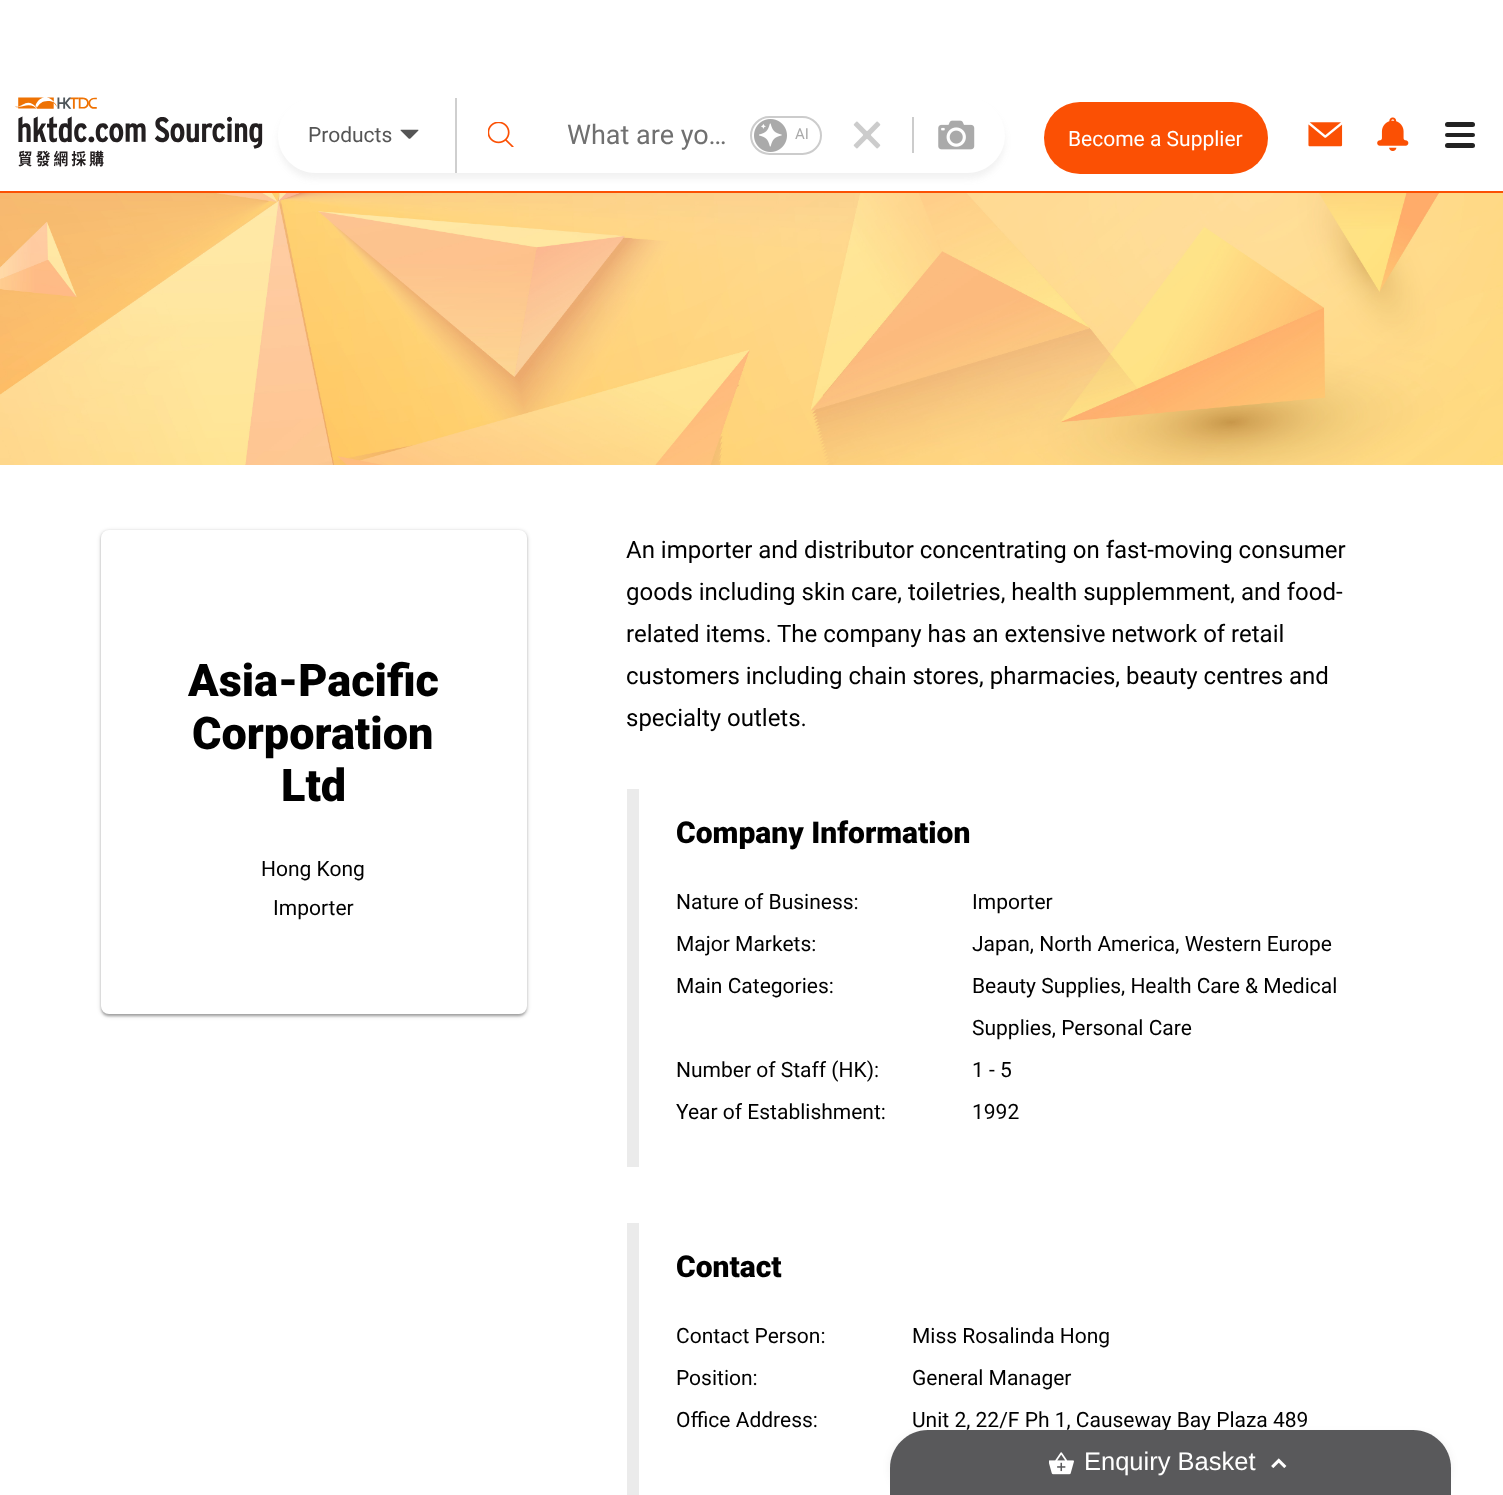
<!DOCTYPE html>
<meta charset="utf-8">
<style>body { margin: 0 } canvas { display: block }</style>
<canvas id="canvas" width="1503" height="1495"></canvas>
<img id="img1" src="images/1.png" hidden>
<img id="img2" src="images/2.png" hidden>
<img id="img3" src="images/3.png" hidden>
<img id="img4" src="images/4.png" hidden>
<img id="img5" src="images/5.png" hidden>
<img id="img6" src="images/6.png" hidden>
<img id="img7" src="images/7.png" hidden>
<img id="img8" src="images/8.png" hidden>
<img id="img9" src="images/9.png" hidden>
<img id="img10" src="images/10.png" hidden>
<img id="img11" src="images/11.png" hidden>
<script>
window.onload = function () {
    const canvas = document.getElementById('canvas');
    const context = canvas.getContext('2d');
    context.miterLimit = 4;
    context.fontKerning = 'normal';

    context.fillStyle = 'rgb(255, 255, 255)';
    context.fillRect(0, 0, 1503, 1495);
    context.fillStyle = 'rgb(251, 80, 4)';
    context.fillRect(0, 191, 1503, 2);
    context.drawImage(document.getElementById('img1'), 15, 97, 248, 70);
    context.save();
    context.beginPath();
    context.moveTo(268, 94);
    context.lineTo(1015, 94);
    context.lineTo(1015, 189);
    context.lineTo(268, 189);
    context.closePath();
    context.moveTo(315.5, 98);
    context.lineTo(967.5, 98);
    context.bezierCurveTo(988, 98, 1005, 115, 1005, 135.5);
    context.bezierCurveTo(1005, 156, 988, 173, 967.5, 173);
    context.lineTo(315.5, 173);
    context.bezierCurveTo(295, 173, 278, 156, 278, 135.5);
    context.bezierCurveTo(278, 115, 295, 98, 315.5, 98);
    context.closePath();
    context.clip('evenodd');
    context.fillStyle = 'rgba(127, 127, 127, 0.1)';
    context.filter = 'blur(3px)';
    context.beginPath();
    context.roundRect(278, 104, 727, 75, 37.5);
    context.fill();
    context.filter = 'none';
    context.restore();
    context.fillStyle = 'rgb(207, 207, 207)';
    context.fillRect(455, 98, 2, 75);
    context.drawImage(document.getElementById('img2'), 400, 129, 19, 10);
    context.drawImage(document.getElementById('img3'), 488, 122, 26, 25);
    context.beginPath();
    context.roundRect(751, 117, 70, 37, 18.5);
    context.strokeStyle = 'rgb(204, 204, 204)';
    context.lineWidth = 2;
    context.stroke();
    context.drawImage(document.getElementById('img4'), 754, 119, 33, 33);
    context.drawImage(document.getElementById('img5'), 853, 121, 28, 28);
    context.fillStyle = 'rgb(204, 204, 204)';
    context.fillRect(912, 117, 2, 36);
    context.drawImage(document.getElementById('img6'), 938, 120, 37, 30);
    context.fillStyle = 'rgb(251, 80, 4)';
    context.beginPath();
    context.roundRect(1044, 102, 224, 72, 36);
    context.fill();
    context.drawImage(document.getElementById('img7'), 1308, 122, 35, 25);
    context.drawImage(document.getElementById('img8'), 1377, 117, 32, 34);
    context.fillStyle = 'rgb(34, 34, 34)';
    context.beginPath();
    context.roundRect(1445, 122, 30, 5, 2.5);
    context.fill();
    context.beginPath();
    context.roundRect(1445, 133, 30, 4, 2);
    context.fill();
    context.beginPath();
    context.roundRect(1445, 143, 30, 5, 2.5);
    context.fill();
    context.drawImage(document.getElementById('img9'), 0, 193, 1503, 272);
    context.fillStyle = 'rgba(0, 0, 0, 0.12)';
    context.filter = 'blur(1px)';
    context.beginPath();
    context.roundRect(102, 534, 423, 482, 6);
    context.fill();
    context.filter = 'none';
    context.fillStyle = 'rgba(0, 0, 0, 0.14)';
    context.filter = 'blur(1px)';
    context.beginPath();
    context.roundRect(101, 531, 426, 485, 8);
    context.fill();
    context.filter = 'none';
    context.fillStyle = 'rgba(0, 0, 0, 0.2)';
    context.filter = 'blur(2px)';
    context.beginPath();
    context.roundRect(101, 531, 426, 485, 8);
    context.fill();
    context.filter = 'none';
    context.fillStyle = 'rgb(255, 255, 255)';
    context.beginPath();
    context.roundRect(101, 530, 426, 484, 8);
    context.fill();
    context.fillStyle = 'rgb(235, 235, 235)';
    context.fillRect(627, 789, 12, 378);
    context.fillRect(627, 1223, 12, 272);
    context.fillStyle = 'rgba(0, 0, 0, 0.06)';
    context.filter = 'blur(4px)';
    context.beginPath();
    context.roundRect(890, 1434, 561, 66, 38);
    context.fill();
    context.filter = 'none';
    context.font = '21px Roboto';
    context.fillStyle = 'rgb(85, 85, 85)';
    context.fillText('Products', 308, 142);
    context.font = '27px Roboto';
    context.fillStyle = 'rgb(112, 112, 112)';
    context.fillText('What are yo…', 567, 144);
    context.font = '15px Roboto';
    context.fillStyle = 'rgb(170, 170, 170)';
    context.fillText('AI', 795, 139);
    context.font = '21px Roboto';
    context.fillStyle = 'rgb(255, 255, 255)';
    context.fillText('Become a Supplier', 1068, 146);
    context.font = '900 45px Roboto';
    context.fillStyle = 'rgb(0, 0, 0)';
    context.fillText('Asia-Pacific', 188, 696);
    context.fillText('Corporation', 192, 749);
    context.fillText('Ltd', 281, 801);
    context.font = '21px Roboto';
    context.fillText('Hong Kong', 261, 876);
    context.fillText('Importer', 273, 915);
    context.font = '24px Roboto';
    context.fillText('An importer and distributor concentrating on fast-moving consumer', 626, 558);
    context.fillText('goods including skin care, toiletries, health supplemment, and food-', 626, 600);
    context.fillText('related items.', 626, 642);
    context.fillText('The company has an extensive network of retail', 777, 642);
    context.fillText('customers including chain stores, pharmacies, beauty centres and', 626, 684);
    context.fillText('specialty outlets.', 626, 726);
    context.font = '900 30px Roboto';
    context.fillText('Company Information', 676, 843);
    context.font = '21px Roboto';
    context.fillText('Nature of Business:', 676, 909);
    context.fillText('Importer', 972, 909);
    context.fillText('Major Markets:', 676, 951);
    context.fillText('Japan, North America, Western Europe', 972, 951);
    context.fillText('Main Categories:', 676, 993);
    context.fillText('Beauty Supplies, Health Care & Medical', 972, 993);
    context.fillText('Supplies, Personal Care', 972, 1035);
    context.fillText('Number of Staff (HK):', 676, 1077);
    context.fillText('1 - 5', 972, 1077);
    context.fillText('Year of Establishment:', 676, 1119);
    context.fillText('1992', 972, 1119);
    context.font = '900 30px Roboto';
    context.fillText('Contact', 676, 1277);
    context.font = '21px Roboto';
    context.fillText('Contact Person:', 676, 1343);
    context.fillText('Miss Rosalinda Hong', 912, 1343);
    context.fillText('Position:', 676, 1385);
    context.fillText('General Manager', 912, 1385);
    context.fillText('Office Address:', 676, 1427);
    context.fillText('Unit 2, 22/F Ph 1, Causeway Bay Plaza 489', 912, 1427);
    context.fillStyle = 'rgb(89, 89, 91)';
    context.beginPath();
    context.moveTo(928, 1430);
    context.lineTo(1413, 1430);
    context.bezierCurveTo(1434, 1430, 1451, 1447, 1451, 1468);
    context.lineTo(1451, 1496);
    context.lineTo(890, 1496);
    context.lineTo(890, 1468);
    context.bezierCurveTo(890, 1447, 907, 1430, 928, 1430);
    context.closePath();
    context.fill();
    context.drawImage(document.getElementById('img10'), 1049, 1452, 25, 23);
    context.font = '25.5px Liberation Sans';
    context.fillStyle = 'rgb(255, 255, 255)';
    context.fillText('Enquiry Basket', 1084, 1470);
    context.drawImage(document.getElementById('img11'), 1271, 1458, 16, 10);
};
</script>
